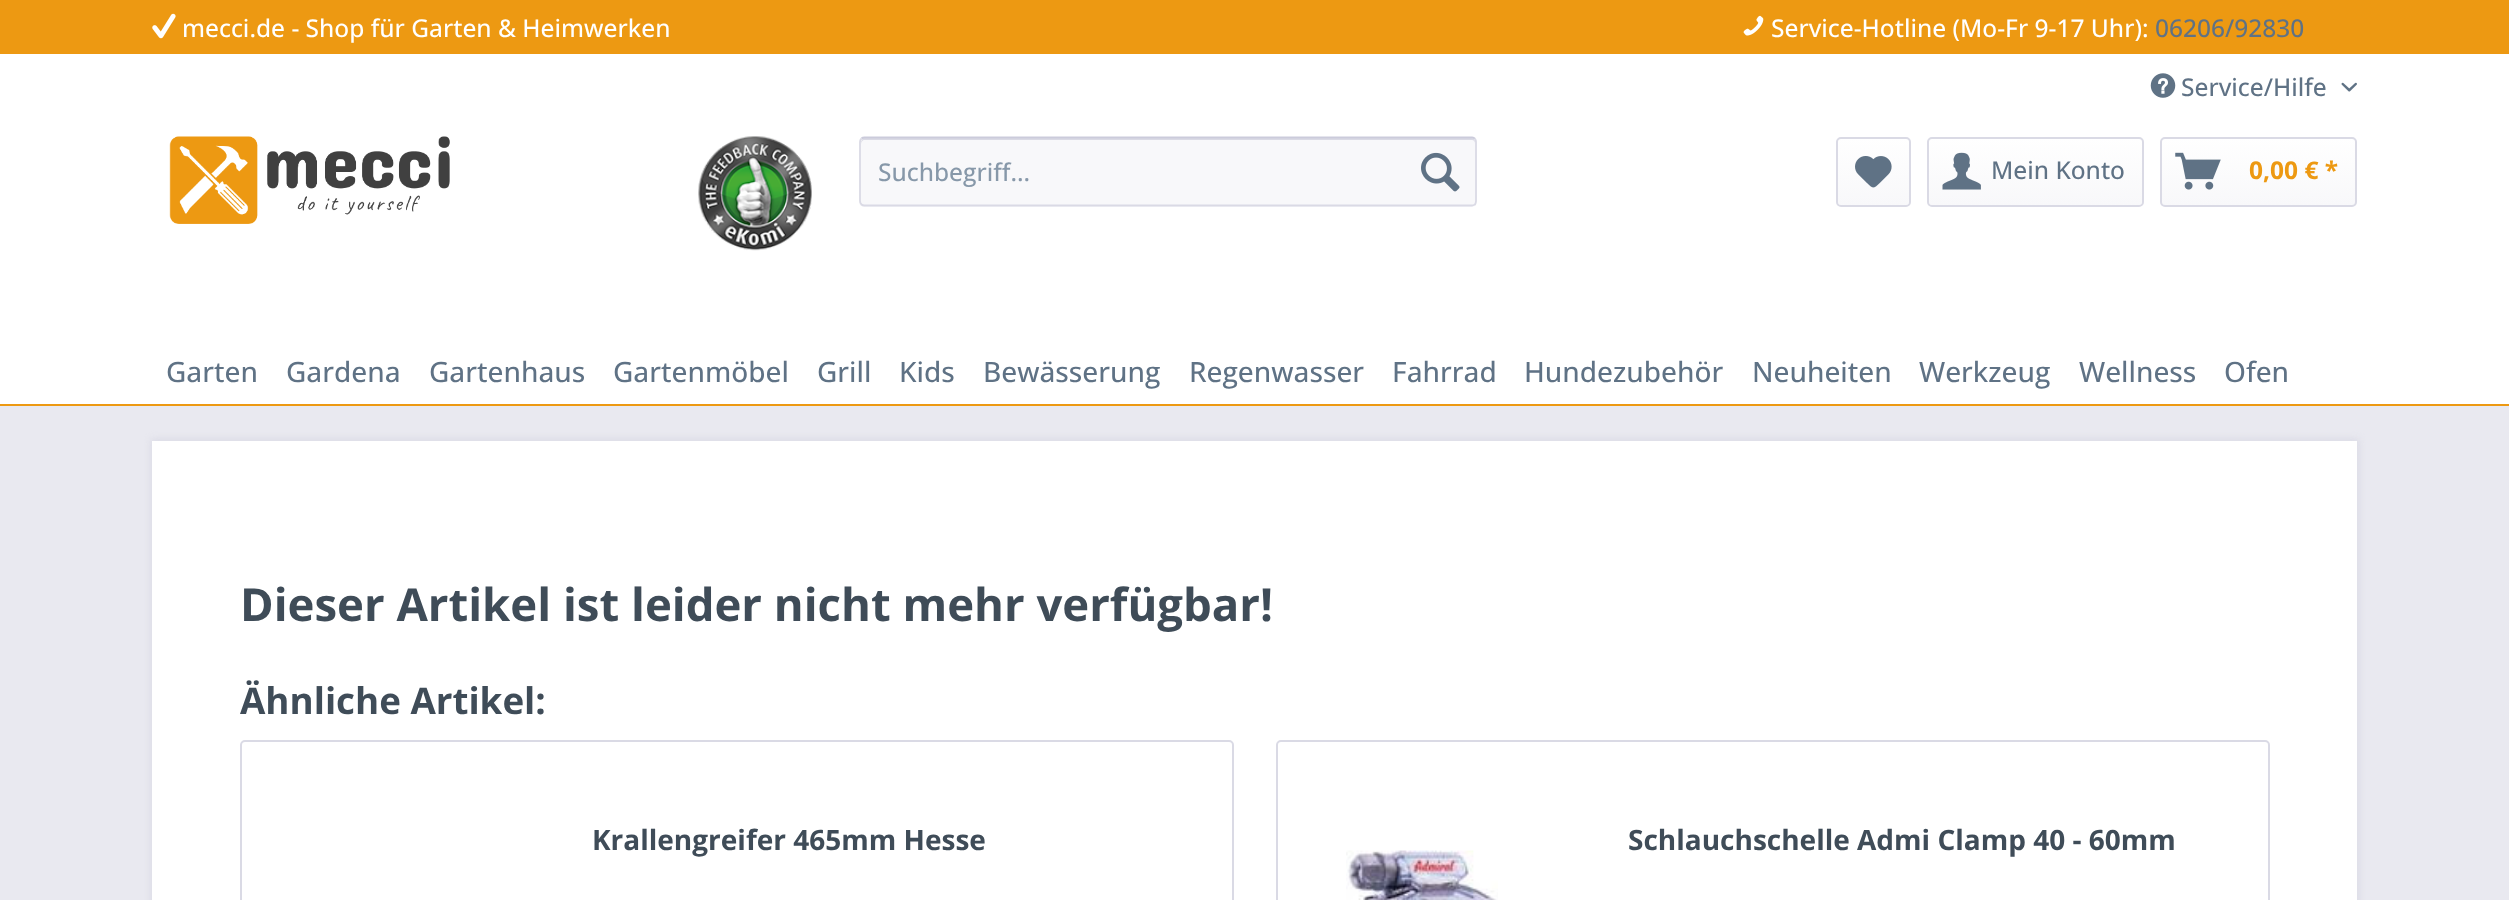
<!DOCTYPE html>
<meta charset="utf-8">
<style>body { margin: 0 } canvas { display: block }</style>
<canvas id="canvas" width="2509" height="900"></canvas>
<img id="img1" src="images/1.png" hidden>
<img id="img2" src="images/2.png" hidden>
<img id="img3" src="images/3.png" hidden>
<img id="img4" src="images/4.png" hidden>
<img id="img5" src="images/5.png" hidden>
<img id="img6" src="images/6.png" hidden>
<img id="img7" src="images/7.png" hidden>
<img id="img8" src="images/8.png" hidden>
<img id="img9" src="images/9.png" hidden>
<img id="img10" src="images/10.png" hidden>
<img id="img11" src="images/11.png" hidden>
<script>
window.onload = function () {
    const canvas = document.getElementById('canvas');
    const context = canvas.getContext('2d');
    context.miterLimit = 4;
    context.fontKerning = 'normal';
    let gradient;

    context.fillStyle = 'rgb(233, 233, 240)';
    context.fillRect(0, 0, 2509, 900);
    context.fillStyle = 'rgb(255, 255, 255)';
    context.fillRect(0, 54, 2509, 350);
    context.fillStyle = 'rgb(237, 153, 18)';
    context.fillRect(0, 0, 2509, 54);
    context.drawImage(document.getElementById('img1'), 152, 13, 24, 26);
    context.drawImage(document.getElementById('img2'), 1743, 15, 21, 21);
    context.drawImage(document.getElementById('img3'), 2150, 73, 26, 25);
    context.drawImage(document.getElementById('img4'), 2341, 82, 16, 10);
    context.drawImage(document.getElementById('img5'), 169, 136, 281, 88);
    context.drawImage(document.getElementById('img6'), 698, 136, 114, 115);
    context.fillStyle = 'rgb(248, 248, 250)';
    context.beginPath();
    context.roundRect(859, 137, 618, 70, 5);
    context.fill();
    context.fillStyle = 'rgb(218, 218, 229)';
    context.beginPath();
    context.moveTo(864, 140);
    context.lineTo(1472, 140);
    context.bezierCurveTo(1474, 140, 1475, 142, 1475, 144);
    context.bezierCurveTo(1475, 141, 1475, 138, 1471, 138);
    context.lineTo(863, 138);
    context.lineTo(862, 140);
    context.bezierCurveTo(861, 141, 861, 143, 861, 144);
    context.bezierCurveTo(861, 142, 863, 140, 864, 140);
    context.closePath();
    context.fill();
    context.beginPath();
    context.moveTo(861.5, 138.5);
    context.bezierCurveTo(862, 138, 863.5, 137.5, 864.5, 137.5);
    context.lineTo(1472, 137.5);
    context.bezierCurveTo(1473, 137.5, 1474, 138, 1475, 138.5);
    context.strokeStyle = 'rgb(203, 203, 219)';
    context.lineWidth = 1.8;
    context.stroke();
    context.beginPath();
    context.moveTo(1475, 138.5);
    context.bezierCurveTo(1475.5, 139.5, 1476, 140.5, 1476, 142);
    context.lineTo(1476, 201);
    context.bezierCurveTo(1476, 202.5, 1475.5, 203.5, 1475, 204.5);
    context.bezierCurveTo(1474, 205, 1473, 205.5, 1472, 205.5);
    context.lineTo(864.5, 205.5);
    context.bezierCurveTo(863.5, 205.5, 862, 205, 861.5, 204.5);
    context.bezierCurveTo(860.5, 203.5, 860, 202.5, 860, 201);
    context.lineTo(860, 142);
    context.bezierCurveTo(860, 140.5, 860.5, 139.5, 861.5, 138.5);
    context.strokeStyle = 'rgb(218, 218, 229)';
    context.stroke();
    context.drawImage(document.getElementById('img7'), 1421, 152, 39, 40);
    gradient = context.createLinearGradient(1873, 138, 1873, 205);
    gradient.addColorStop(0, 'rgb(255, 255, 255)');
    gradient.addColorStop(1, 'rgb(248, 248, 250)');
    context.fillStyle = gradient;
    context.beginPath();
    context.roundRect(1838, 138, 71, 67, 4);
    context.fill();
    context.beginPath();
    context.roundRect(1837, 138, 73, 68, 4);
    context.lineWidth = 2;
    context.stroke();
    context.drawImage(document.getElementById('img8'), 1855, 156, 37, 32);
    gradient = context.createLinearGradient(2035, 138, 2035, 205);
    gradient.addColorStop(0, 'rgb(255, 255, 255)');
    gradient.addColorStop(1, 'rgb(248, 248, 250)');
    context.fillStyle = gradient;
    context.beginPath();
    context.roundRect(1929, 138, 213, 67, 4);
    context.fill();
    context.beginPath();
    context.roundRect(1928, 138, 215, 68, 4);
    context.stroke();
    context.drawImage(document.getElementById('img9'), 1942, 152, 39, 38);
    gradient = context.createLinearGradient(2258, 138, 2258, 205);
    gradient.addColorStop(0, 'rgb(255, 255, 255)');
    gradient.addColorStop(1, 'rgb(248, 248, 250)');
    context.fillStyle = gradient;
    context.beginPath();
    context.roundRect(2161, 138, 195, 67, 4);
    context.fill();
    context.beginPath();
    context.roundRect(2161, 138, 195, 68, 4);
    context.stroke();
    context.drawImage(document.getElementById('img10'), 2175, 152, 46, 38);
    context.fillStyle = 'rgb(237, 153, 18)';
    context.fillRect(0, 404, 2509, 2);
    context.fillStyle = 'rgb(218, 218, 229)';
    context.filter = 'blur(3.5px)';
    context.beginPath();
    context.rect(151, 439, 2208, 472);
    context.fill();
    context.filter = 'none';
    context.fillStyle = 'rgb(255, 255, 255)';
    context.fillRect(152, 441, 2205, 459);
    context.beginPath();
    context.roundRect(241, 741, 992, 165, 4);
    context.stroke();
    context.beginPath();
    context.roundRect(1277, 741, 992, 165, 4);
    context.stroke();
    context.drawImage(document.getElementById('img11'), 1346, 850, 152, 50);
    context.font = '500 24.5px Open Sans';
    context.fillText('mecci.de - Shop für Garten & Heimwerken', 182, 37);
    context.fillText('Service-Hotline (Mo-Fr 9-17 Uhr):', 1771, 37);
    context.fillStyle = 'rgb(95, 114, 133)';
    context.fillText('06206/92830', 2155, 37);
    context.fillText('Service/Hilfe', 2181, 96);
    context.fillStyle = 'rgb(135, 152, 169)';
    context.fillText('Suchbegriff...', 878, 181);
    context.fillStyle = 'rgb(95, 114, 133)';
    context.fillText('Mein Konto', 1991, 179);
    context.font = 'bold 24.5px Open Sans';
    context.fillStyle = 'rgb(237, 153, 18)';
    context.fillText('0,00 € *', 2249, 179);
    context.font = '500 28px Open Sans';
    context.fillStyle = 'rgb(95, 114, 133)';
    context.fillText('Garten', 166, 382);
    context.fillText('Gardena', 286, 382);
    context.fillText('Gartenhaus', 429, 382);
    context.fillText('Gartenmöbel', 613, 382);
    context.fillText('Grill', 817, 382);
    context.fillText('Kids', 899, 382);
    context.fillText('Bewässerung', 983, 382);
    context.fillText('Regenwasser', 1189, 382);
    context.fillText('Fahrrad', 1392, 382);
    context.fillText('Hundezubehör', 1524, 382);
    context.fillText('Neuheiten', 1752, 382);
    context.fillText('Werkzeug', 1919, 382);
    context.fillText('Wellness', 2079, 382);
    context.fillText('Ofen', 2224, 382);
    context.font = 'bold 45.5px Open Sans';
    context.fillStyle = 'rgb(63, 76, 88)';
    context.fillText('Dieser Artikel ist leider nicht mehr verfügbar!', 240, 621);
    context.font = 'bold 36.75px Open Sans';
    context.fillText('Ähnliche Artikel:', 240, 714);
    context.font = 'bold 28px Open Sans';
    context.fillText('Krallengreifer 465mm Hesse', 592, 850);
    context.fillText('Schlauchschelle Admi Clamp 40 - 60mm', 1628, 850);
};
</script>
